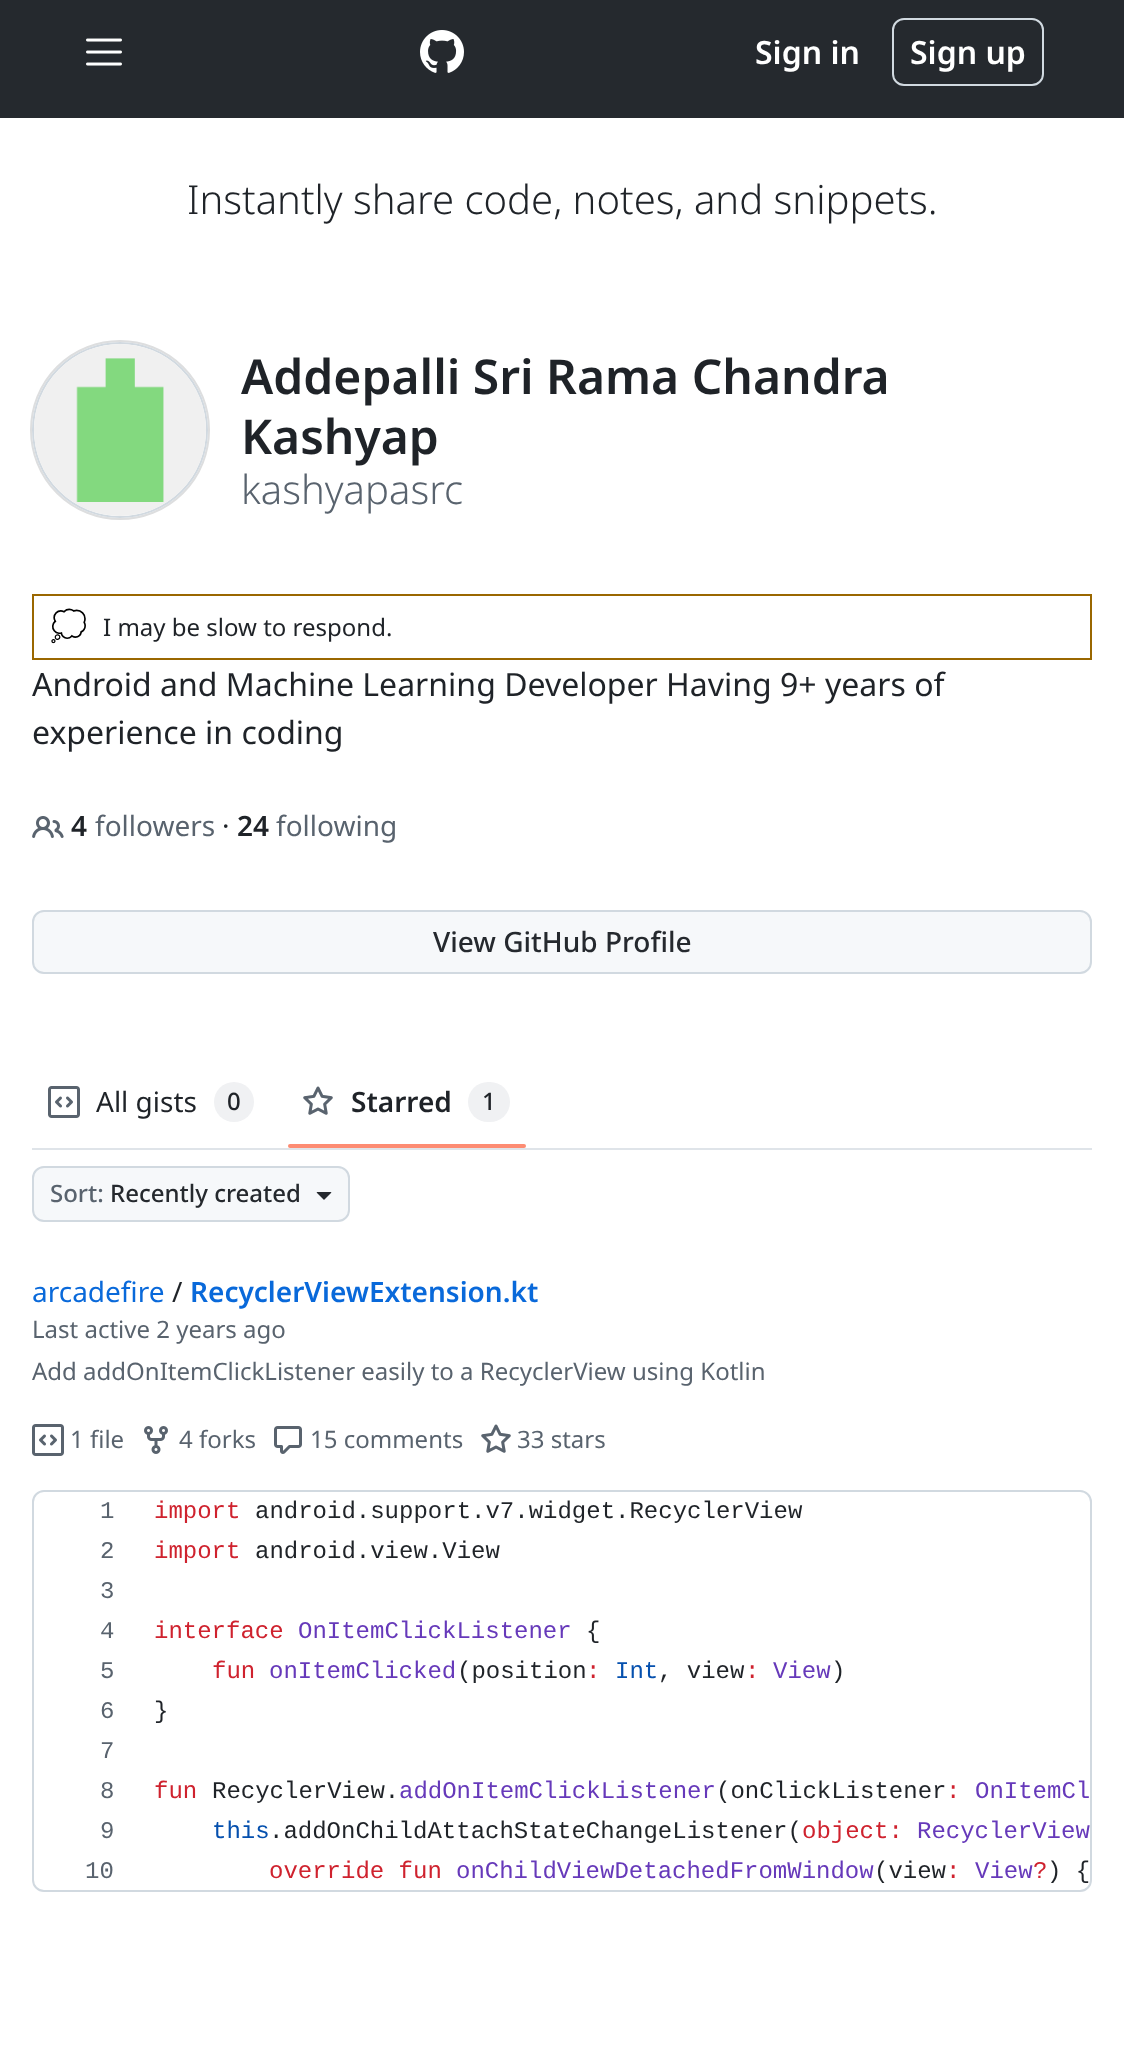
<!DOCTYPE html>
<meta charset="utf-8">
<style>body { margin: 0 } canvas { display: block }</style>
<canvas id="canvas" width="1124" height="2060"></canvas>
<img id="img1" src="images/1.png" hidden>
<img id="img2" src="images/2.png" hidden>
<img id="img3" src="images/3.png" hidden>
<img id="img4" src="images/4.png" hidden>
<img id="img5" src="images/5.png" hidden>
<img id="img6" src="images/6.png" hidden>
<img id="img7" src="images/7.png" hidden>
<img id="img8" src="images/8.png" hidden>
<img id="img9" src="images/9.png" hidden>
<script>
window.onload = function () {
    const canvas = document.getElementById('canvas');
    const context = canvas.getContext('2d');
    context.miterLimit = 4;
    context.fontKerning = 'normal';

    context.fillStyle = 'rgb(255, 255, 255)';
    context.fillRect(0, 0, 1124, 2060);
    context.fillStyle = 'rgb(37, 41, 46)';
    context.fillRect(0, 0, 1124, 118);
    context.drawImage(document.getElementById('img1'), 86, 38, 36, 28);
    context.drawImage(document.getElementById('img2'), 420, 30, 44, 43);
    context.beginPath();
    context.roundRect(893, 19, 150, 66, 11);
    context.strokeStyle = 'rgb(209, 217, 224)';
    context.lineWidth = 2;
    context.stroke();
    context.beginPath();
    context.arc(120, 430, 89, 0, 2 * Math.PI);
    context.strokeStyle = 'rgb(221, 222, 223)';
    context.stroke();
    context.fillStyle = 'rgb(255, 255, 255)';
    context.beginPath();
    context.arc(120, 430, 87, 0, 2 * Math.PI);
    context.fill();
    context.strokeStyle = 'rgb(209, 217, 224)';
    context.stroke();
    context.drawImage(document.getElementById('img3'), 34, 344, 172, 172);
    context.strokeStyle = 'rgb(154, 103, 0)';
    context.strokeRect(33, 595, 1058, 64);
    context.drawImage(document.getElementById('img4'), 32, 816, 32, 22);
    context.fillStyle = 'rgb(246, 248, 250)';
    context.beginPath();
    context.roundRect(33, 911, 1058, 62, 11);
    context.fill();
    context.strokeStyle = 'rgb(209, 217, 224)';
    context.stroke();
    context.fillStyle = 'rgb(223, 228, 233)';
    context.fillRect(32, 1148, 1060, 2);
    context.drawImage(document.getElementById('img5'), 48, 1086, 32, 32);
    context.fillStyle = 'rgb(240, 241, 243)';
    context.beginPath();
    context.arc(234, 1102, 20, 0, 2 * Math.PI);
    context.fill();
    context.drawImage(document.getElementById('img6'), 303, 1086, 30, 29);
    context.beginPath();
    context.roundRect(468, 1082, 42, 40, 20);
    context.fill();
    context.fillStyle = 'rgb(253, 140, 115)';
    context.beginPath();
    context.roundRect(288, 1144, 238, 4, 2);
    context.fill();
    context.fillStyle = 'rgb(246, 248, 250)';
    context.beginPath();
    context.roundRect(33, 1167, 316, 54, 11);
    context.fill();
    context.stroke();
    context.drawImage(document.getElementById('img7'), 316, 1192, 16, 8);
    context.drawImage(document.getElementById('img5'), 32, 1424, 32, 32);
    context.drawImage(document.getElementById('img8'), 144, 1426, 24, 28);
    context.drawImage(document.getElementById('img9'), 274, 1426, 28, 28);
    context.drawImage(document.getElementById('img6'), 481, 1424, 30, 29);
    context.beginPath();
    context.roundRect(33, 1491, 1058, 400, 11);
    context.stroke();
    context.font = '600 32px Noto Sans';
    context.fillStyle = 'rgb(255, 255, 255)';
    context.fillText('Sign in', 755, 64);
    context.fillText('Sign up', 910, 64);
    context.font = '300 40px Noto Sans';
    context.fillStyle = 'rgb(31, 35, 40)';
    context.fillText('Instantly share code, notes, and snippets.', 187, 214);
    context.font = '600 48px Noto Sans';
    context.fillText('Addepalli Sri Rama Chandra', 241, 394);
    context.fillText('Kashyap', 241, 454);
    context.font = '300 40px Noto Sans';
    context.fillStyle = 'rgb(89, 99, 110)';
    context.fillText('kashyapasrc', 241, 504);
    context.font = '30px Noto Color Emoji';
    context.fillStyle = 'rgb(31, 35, 40)';
    context.fillText('💭', 50, 636);
    context.font = '24px Noto Sans';
    context.fillText('I may be slow to respond.', 103, 636);
    context.font = '32px Noto Sans';
    context.fillText('Android and Machine Learning Developer Having 9+ years of', 32, 696);
    context.fillText('experience in coding', 32, 744);
    context.font = '600 28px Noto Sans';
    context.fillText('4', 71, 836);
    context.font = '28px Noto Sans';
    context.fillStyle = 'rgb(89, 99, 110)';
    context.fillText('followers', 95, 836);
    context.fillStyle = 'rgb(31, 35, 40)';
    context.fillText('·', 222, 836);
    context.font = '600 28px Noto Sans';
    context.fillText('24', 237, 836);
    context.font = '28px Noto Sans';
    context.fillStyle = 'rgb(89, 99, 110)';
    context.fillText('following', 276, 836);
    context.font = '500 28px Noto Sans';
    context.fillStyle = 'rgb(37, 41, 46)';
    context.fillText('View GitHub Profile', 433, 952);
    context.font = '28px Noto Sans';
    context.fillStyle = 'rgb(31, 35, 40)';
    context.fillText('All gists', 96, 1112);
    context.font = '500 24px Noto Sans';
    context.fillText('0', 227, 1110);
    context.font = '600 28px Noto Sans';
    context.fillText('Starred', 351, 1112);
    context.font = '500 24px Noto Sans';
    context.fillText('1', 482, 1110);
    context.fillStyle = 'rgb(89, 99, 110)';
    context.fillText('Sort:', 50, 1202);
    context.fillStyle = 'rgb(37, 41, 46)';
    context.fillText('Recently created', 110, 1202);
    context.font = '28px Noto Sans';
    context.fillStyle = 'rgb(9, 105, 218)';
    context.fillText('arcadefire', 32, 1302);
    context.fillStyle = 'rgb(31, 35, 40)';
    context.fillText('/', 172, 1302);
    context.font = '600 28px Noto Sans';
    context.fillStyle = 'rgb(9, 105, 218)';
    context.fillText('RecyclerViewExtension.kt', 190, 1302);
    context.font = '24px Noto Sans';
    context.fillStyle = 'rgb(89, 99, 110)';
    context.fillText('Last active 2 years ago', 32, 1338);
    context.fillText('Add addOnItemClickListener easily to a RecyclerView using Kotlin', 32, 1380);
    context.fillText('1 file', 70, 1448);
    context.fillText('4 forks', 179, 1448);
    context.fillText('15 comments', 310, 1448);
    context.fillText('33 stars', 517, 1448);
    context.font = '24px Liberation Mono';
    context.fillText('1', 100, 1518);
    context.fillStyle = 'rgb(207, 34, 46)';
    context.fillText('import', 154, 1518);
    context.fillStyle = 'rgb(31, 35, 40)';
    context.fillText('android.support.v7.widget.RecyclerView', 255, 1518);
    context.fillStyle = 'rgb(89, 99, 110)';
    context.fillText('2', 100, 1558);
    context.fillStyle = 'rgb(207, 34, 46)';
    context.fillText('import', 154, 1558);
    context.fillStyle = 'rgb(31, 35, 40)';
    context.fillText('android.view.View', 255, 1558);
    context.fillStyle = 'rgb(89, 99, 110)';
    context.fillText('3', 100, 1598);
    context.fillText('4', 100, 1638);
    context.fillStyle = 'rgb(207, 34, 46)';
    context.fillText('interface', 154, 1638);
    context.fillStyle = 'rgb(102, 57, 186)';
    context.fillText('OnItemClickListener', 298, 1638);
    context.fillStyle = 'rgb(31, 35, 40)';
    context.fillText('{', 586, 1638);
    context.fillStyle = 'rgb(89, 99, 110)';
    context.fillText('5', 100, 1678);
    context.fillStyle = 'rgb(207, 34, 46)';
    context.fillText('fun', 212, 1678);
    context.fillStyle = 'rgb(102, 57, 186)';
    context.fillText('onItemClicked', 269, 1678);
    context.fillStyle = 'rgb(31, 35, 40)';
    context.fillText('(position', 457, 1678);
    context.fillStyle = 'rgb(207, 34, 46)';
    context.fillText(':', 586, 1678);
    context.fillStyle = 'rgb(5, 80, 174)';
    context.fillText('Int', 615, 1678);
    context.fillStyle = 'rgb(31, 35, 40)';
    context.fillText(', view', 658, 1678);
    context.fillStyle = 'rgb(207, 34, 46)';
    context.fillText(':', 745, 1678);
    context.fillStyle = 'rgb(102, 57, 186)';
    context.fillText('View', 773, 1678);
    context.fillStyle = 'rgb(31, 35, 40)';
    context.fillText(')', 831, 1678);
    context.fillStyle = 'rgb(89, 99, 110)';
    context.fillText('6', 100, 1718);
    context.fillStyle = 'rgb(31, 35, 40)';
    context.fillText('}', 154, 1718);
    context.fillStyle = 'rgb(89, 99, 110)';
    context.fillText('7', 100, 1758);
    context.fillText('8', 100, 1798);
    context.fillStyle = 'rgb(207, 34, 46)';
    context.fillText('fun', 154, 1798);
    context.fillStyle = 'rgb(31, 35, 40)';
    context.fillText('RecyclerView.', 212, 1798);
    context.fillStyle = 'rgb(102, 57, 186)';
    context.fillText('addOnItemClickListener', 399, 1798);
    context.fillStyle = 'rgb(31, 35, 40)';
    context.fillText('(onClickListener', 716, 1798);
    context.fillStyle = 'rgb(207, 34, 46)';
    context.fillText(':', 946, 1798);
    context.fillStyle = 'rgb(102, 57, 186)';
    context.fillText('OnItemCl', 975, 1798);
    context.fillStyle = 'rgb(89, 99, 110)';
    context.fillText('9', 100, 1838);
    context.fillStyle = 'rgb(5, 80, 174)';
    context.fillText('this', 212, 1838);
    context.fillStyle = 'rgb(31, 35, 40)';
    context.fillText('.addOnChildAttachStateChangeListener(', 269, 1838);
    context.fillStyle = 'rgb(207, 34, 46)';
    context.fillText('object:', 802, 1838);
    context.fillStyle = 'rgb(102, 57, 186)';
    context.fillText('RecyclerView', 917, 1838);
    context.fillStyle = 'rgb(89, 99, 110)';
    context.fillText('10', 85, 1878);
    context.fillStyle = 'rgb(207, 34, 46)';
    context.fillText('override fun', 269, 1878);
    context.fillStyle = 'rgb(102, 57, 186)';
    context.fillText('onChildViewDetachedFromWindow', 456, 1878);
    context.fillStyle = 'rgb(31, 35, 40)';
    context.fillText('(view', 874, 1878);
    context.fillStyle = 'rgb(207, 34, 46)';
    context.fillText(':', 946, 1878);
    context.fillStyle = 'rgb(102, 57, 186)';
    context.fillText('View', 975, 1878);
    context.fillStyle = 'rgb(207, 34, 46)';
    context.fillText('?', 1033, 1878);
    context.fillStyle = 'rgb(31, 35, 40)';
    context.fillText(') {', 1047, 1878);
};
</script>
